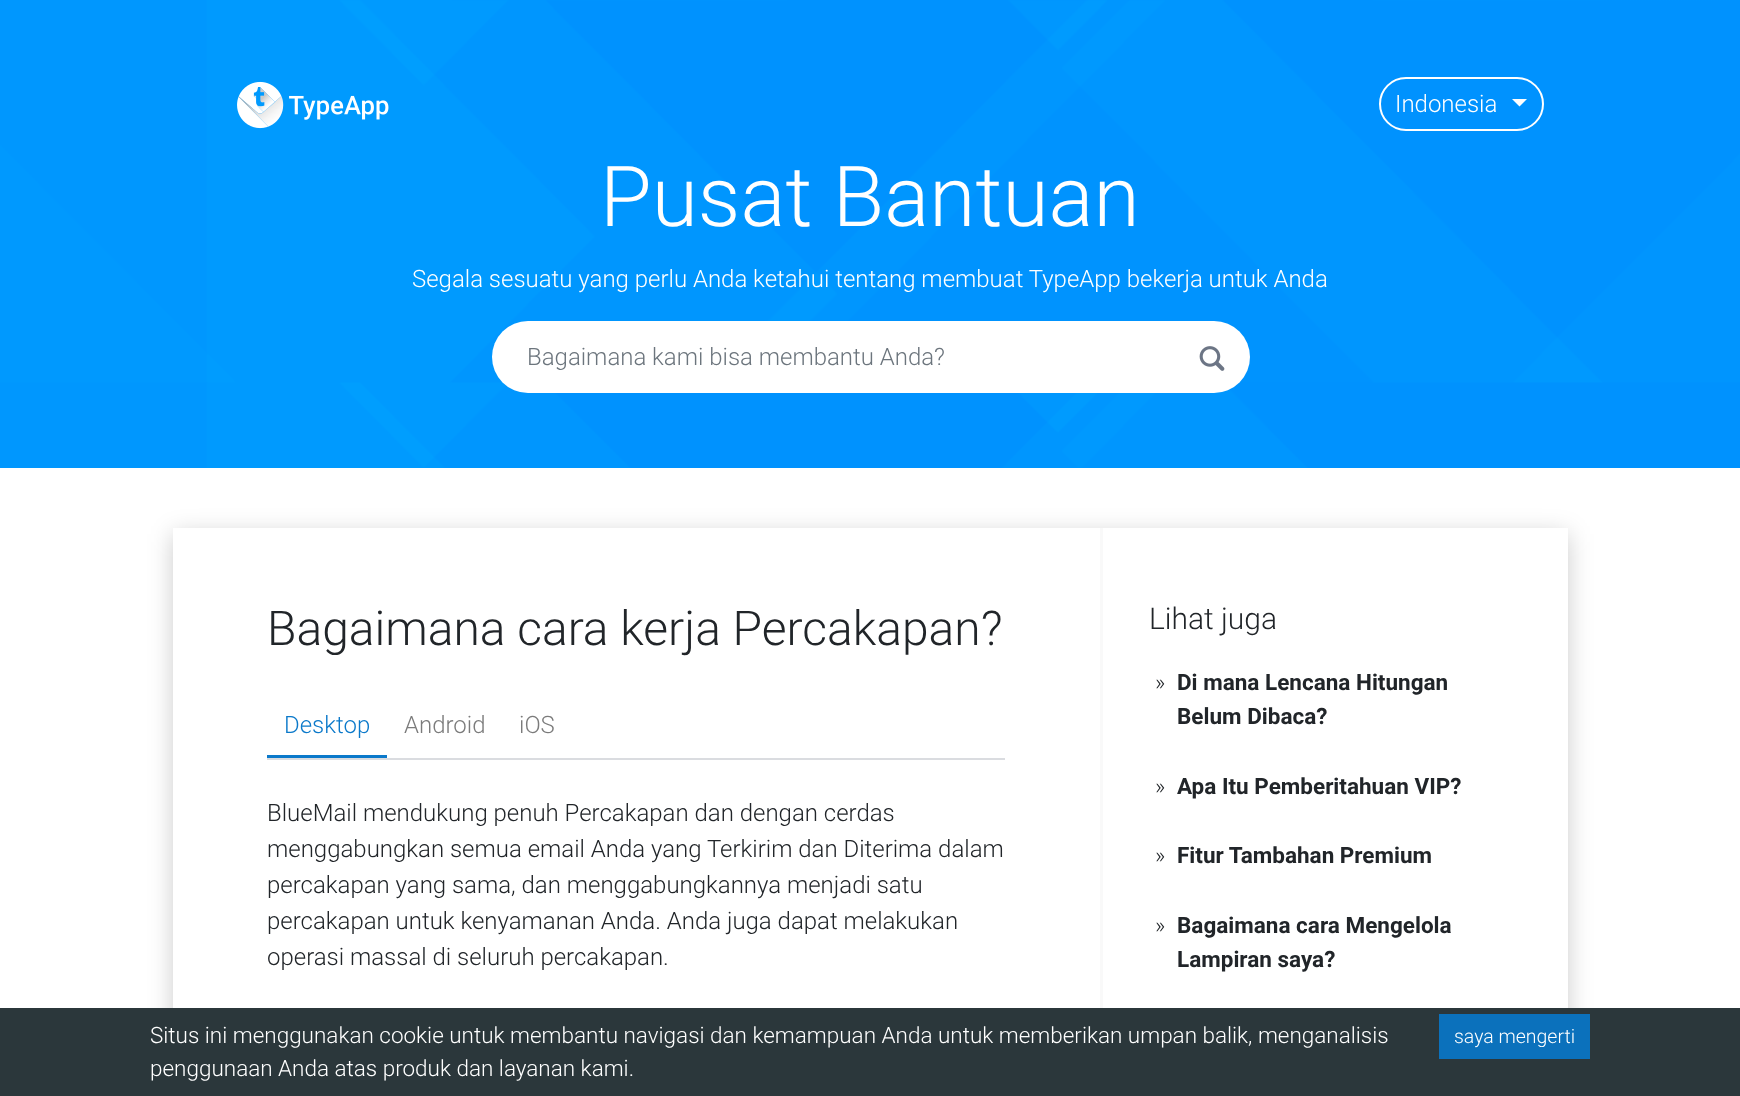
<!DOCTYPE html>
<meta charset="utf-8">
<style>body { margin: 0 } canvas { display: block }</style>
<canvas id="canvas" width="1740" height="1096"></canvas>
<img id="img1" src="images/1.png" hidden>
<img id="img2" src="images/2.png" hidden>
<img id="img3" src="images/3.png" hidden>
<script>
window.onload = function () {
    const canvas = document.getElementById('canvas');
    const context = canvas.getContext('2d');
    context.miterLimit = 4;
    context.fontKerning = 'normal';

    context.fillStyle = 'rgb(255, 255, 255)';
    context.fillRect(0, 0, 1740, 1096);
    context.drawImage(document.getElementById('img1'), 0, 0, 1740, 468);
    context.drawImage(document.getElementById('img2'), 237, 81, 152, 48);
    context.beginPath();
    context.roundRect(1380, 78, 163, 52, 26);
    context.strokeStyle = 'rgb(255, 255, 255)';
    context.lineWidth = 2;
    context.stroke();
    context.beginPath();
    context.moveTo(1512, 99);
    context.lineTo(1527, 99);
    context.lineTo(1519.5, 106.5);
    context.closePath();
    context.fill();
    context.beginPath();
    context.roundRect(492, 321, 683, 72, [36, 0, 0, 36]);
    context.fill();
    context.beginPath();
    context.roundRect(1175, 321, 75, 72, [0, 36, 36, 0]);
    context.fill();
    context.drawImage(document.getElementById('img3'), 1199, 346, 26, 25);
    context.fillStyle = 'rgba(0, 0, 0, 0.2)';
    context.filter = 'blur(12px)';
    context.beginPath();
    context.rect(173, 534, 1395, 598);
    context.fill();
    context.filter = 'none';
    context.fillStyle = 'rgb(43, 55, 59)';
    context.fillRect(0, 1008, 1740, 88);
    context.fillStyle = 'rgb(11, 113, 188)';
    context.fillRect(1439, 1014, 151, 45);
    context.fillStyle = 'rgb(255, 255, 255)';
    context.fillRect(173, 528, 1395, 480);
    context.fillStyle = 'rgb(249, 249, 249)';
    context.fillRect(1100, 528, 3, 480);
    context.fillStyle = 'rgb(218, 220, 224)';
    context.fillRect(267, 758, 738, 2);
    context.fillStyle = 'rgb(11, 121, 202)';
    context.fillRect(267, 755, 120, 3);
    context.font = '300 24px Roboto';
    context.fillStyle = 'rgb(255, 255, 255)';
    context.fillText('Indonesia', 1395, 112);
    context.font = '300 84px Roboto';
    context.fillText('Pusat Bantuan', 600, 226);
    context.font = '300 24px Roboto';
    context.fillText('Segala sesuatu yang perlu Anda ketahui tentang membuat TypeApp bekerja untuk Anda', 412, 287);
    context.fillStyle = 'rgb(108, 117, 125)';
    context.fillText('Bagaimana kami bisa membantu Anda?', 527, 365);
    context.font = '300 22.5px Roboto';
    context.fillStyle = 'rgb(255, 255, 255)';
    context.fillText('Situs ini menggunakan cookie untuk membantu navigasi dan kemampuan Anda untuk memberikan umpan balik, menganalisis', 150, 1043);
    context.fillText('penggunaan Anda atas produk dan layanan kami.', 150, 1076);
    context.font = '300 19.5px Roboto';
    context.fillText('saya mengerti', 1454, 1043);
    context.font = '300 48px Roboto';
    context.fillStyle = 'rgb(33, 37, 41)';
    context.fillText('Bagaimana cara kerja Percakapan?', 267, 645);
    context.font = '300 24px Roboto';
    context.fillStyle = 'rgb(11, 121, 202)';
    context.fillText('Desktop', 284, 733);
    context.fillStyle = 'rgb(123, 123, 123)';
    context.fillText('Android', 404, 733);
    context.fillText('iOS', 519, 733);
    context.fillStyle = 'rgb(33, 37, 41)';
    context.fillText('BlueMail mendukung penuh Percakapan dan dengan cerdas', 267, 821);
    context.fillText('menggabungkan semua email Anda yang Terkirim dan Diterima dalam', 267, 857);
    context.fillText('percakapan yang sama, dan menggabungkannya menjadi satu', 267, 893);
    context.fillText('percakapan untuk kenyamanan Anda. Anda juga dapat melakukan', 267, 929);
    context.fillText('operasi massal di seluruh percakapan.', 267, 965);
    context.font = '300 30px Roboto';
    context.fillText('Lihat juga', 1149, 629);
    context.font = '300 22.5px Roboto';
    context.fillText('»', 1155, 690);
    context.font = 'bold 22.5px Roboto';
    context.fillText('Di mana Lencana Hitungan', 1177, 690);
    context.fillText('Belum Dibaca?', 1177, 724);
    context.font = '300 22.5px Roboto';
    context.fillText('»', 1155, 794);
    context.font = 'bold 22.5px Roboto';
    context.fillText('Apa Itu Pemberitahuan VIP?', 1177, 794);
    context.font = '300 22.5px Roboto';
    context.fillText('»', 1155, 863);
    context.font = 'bold 22.5px Roboto';
    context.fillText('Fitur Tambahan Premium', 1177, 863);
    context.font = '300 22.5px Roboto';
    context.fillText('»', 1155, 933);
    context.font = 'bold 22.5px Roboto';
    context.fillText('Bagaimana cara Mengelola', 1177, 933);
    context.fillText('Lampiran saya?', 1177, 967);
};
</script>
